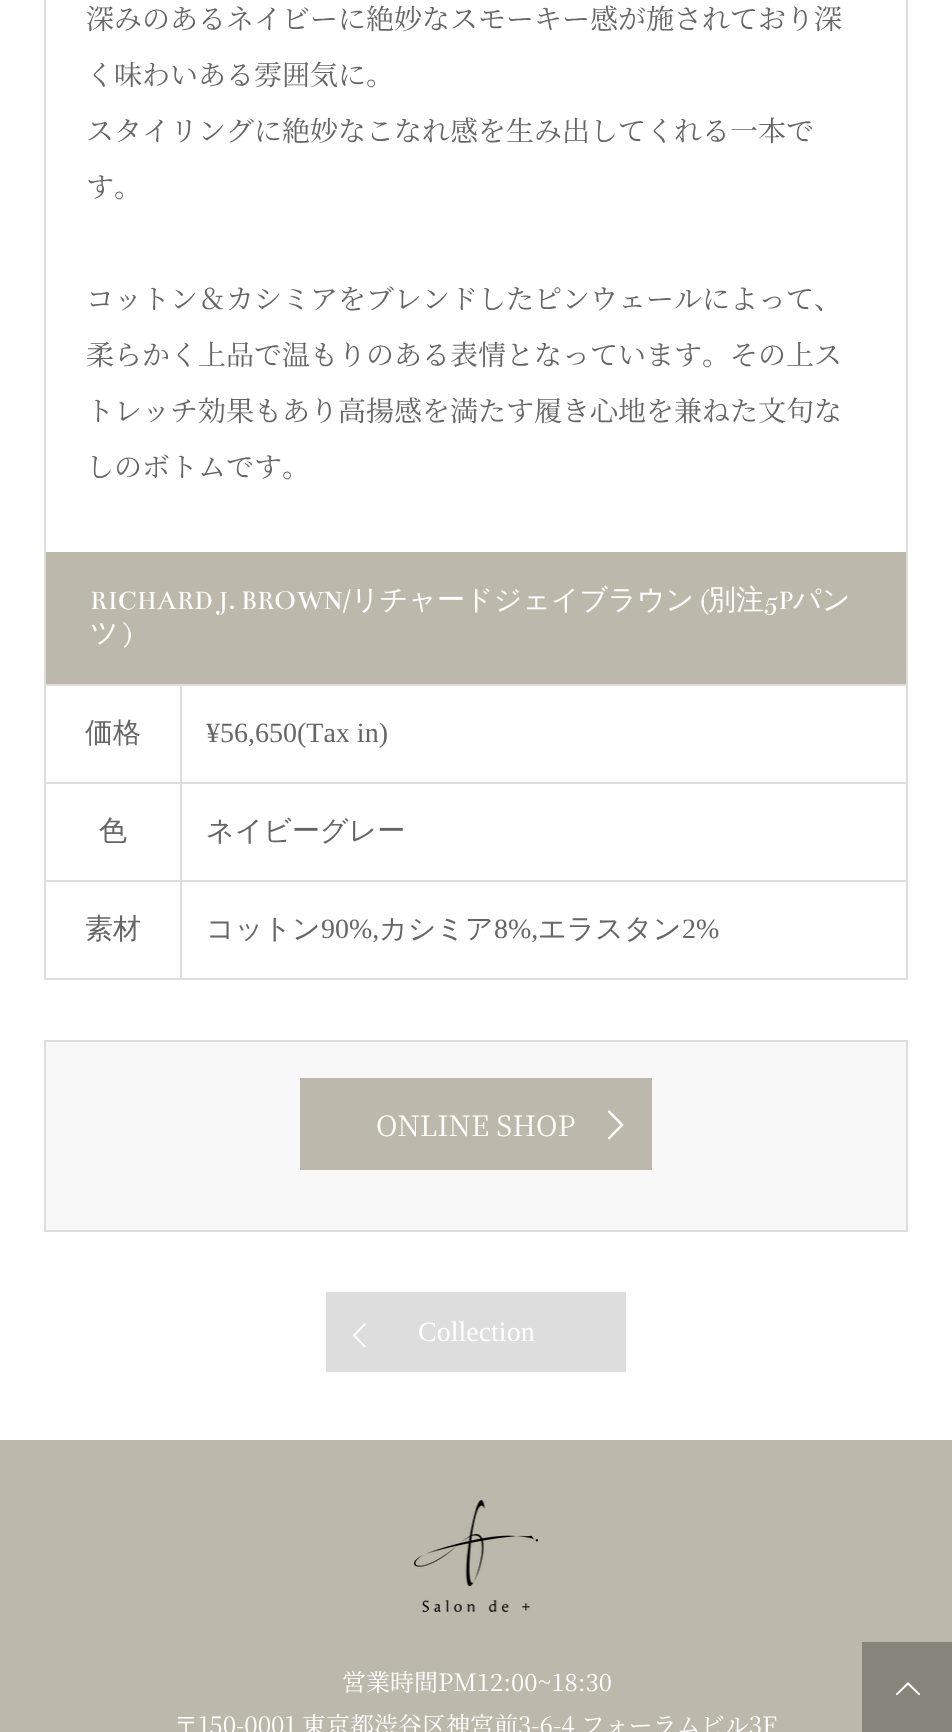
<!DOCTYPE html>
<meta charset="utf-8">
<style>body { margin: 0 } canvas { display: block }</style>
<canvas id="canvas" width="952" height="1732"></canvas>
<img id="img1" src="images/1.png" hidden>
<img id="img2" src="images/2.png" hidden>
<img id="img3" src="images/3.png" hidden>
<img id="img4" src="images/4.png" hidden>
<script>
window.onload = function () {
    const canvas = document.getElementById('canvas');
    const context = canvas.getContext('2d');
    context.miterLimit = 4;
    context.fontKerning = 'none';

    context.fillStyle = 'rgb(255, 255, 255)';
    context.fillRect(0, 0, 952, 1732);
    context.fillStyle = 'rgb(221, 221, 221)';
    context.fillRect(906, 0, 2, 980);
    context.fillRect(44, 978, 864, 2);
    context.fillRect(44, 0, 2, 980);
    context.fillStyle = 'rgb(189, 184, 172)';
    context.fillRect(46, 552, 860, 132);
    context.fillStyle = 'rgb(221, 221, 221)';
    context.fillRect(180, 684, 728, 2);
    context.fillRect(180, 782, 728, 2);
    context.fillRect(180, 880, 728, 2);
    context.fillRect(180, 880, 2, 98);
    context.fillRect(46, 880, 136, 2);
    context.fillRect(180, 782, 2, 100);
    context.fillRect(46, 782, 136, 2);
    context.fillRect(180, 684, 2, 100);
    context.fillRect(46, 684, 136, 2);
    context.fillStyle = 'rgb(248, 248, 248)';
    context.beginPath();
    context.rect(45, 1041, 862, 190);
    context.fill();
    context.strokeStyle = 'rgb(221, 221, 221)';
    context.lineWidth = 2;
    context.stroke();
    context.fillStyle = 'rgb(189, 184, 172)';
    context.fillRect(300, 1078, 352, 92);
    context.drawImage(document.getElementById('img1'), 608, 1110, 16, 30);
    context.fillStyle = 'rgb(221, 221, 221)';
    context.fillRect(326, 1292, 300, 80);
    context.drawImage(document.getElementById('img2'), 353, 1323, 13, 25);
    context.fillStyle = 'rgb(189, 184, 172)';
    context.fillRect(0, 1440, 952, 292);
    context.drawImage(document.getElementById('img3'), 414, 1500, 124, 112);
    context.fillStyle = 'rgb(135, 132, 123)';
    context.fillRect(862, 1642, 90, 90);
    context.drawImage(document.getElementById('img4'), 896, 1682, 24, 14);
    context.font = '200 28px Noto Serif JP';
    context.fillStyle = 'rgb(102, 102, 102)';
    context.fillText('深みのあるネイビーに絶妙なスモーキー感が施されており深', 86, 29);
    context.fillText('く味わいある雰囲気に。', 86, 85);
    context.fillText('スタイリングに絶妙なこなれ感を生み出してくれる一本で', 86, 141);
    context.fillText('す。', 86, 197);
    context.fillText('コットン＆カシミアをブレンドしたピンウェールによって、', 86, 309);
    context.fillText('柔らかく上品で温もりのある表情となっています。その上ス', 86, 365);
    context.fillText('トレッチ効果もあり高揚感を満たす履き心地を兼ねた文句な', 86, 421);
    context.fillText('しのボトムです。', 86, 477);
    context.font = '28px Bentham';
    context.fillStyle = 'rgb(255, 255, 255)';
    context.fillText('RICHARD J. BROWN/', 90, 609);
    context.font = '500 28px WenQuanYi Zen Hei';
    context.fillText('リチャードジェイブラウン', 351, 609);
    context.font = '28px Bentham';
    context.fillText('(', 700, 609);
    context.font = '500 28px WenQuanYi Zen Hei';
    context.fillText('別注', 708, 609);
    context.font = '28px Bentham';
    context.fillText('5P', 764, 609);
    context.font = '500 28px WenQuanYi Zen Hei';
    context.fillText('パン', 793, 609);
    context.fillText('ツ', 90, 642);
    context.font = '28px Bentham';
    context.fillText(')', 124, 642);
    context.font = '500 28px WenQuanYi Zen Hei';
    context.fillStyle = 'rgb(102, 102, 102)';
    context.fillText('価格', 85, 742);
    context.font = '28px Liberation Serif';
    context.fillText('¥56,650(Tax in)', 206, 742);
    context.font = '500 28px WenQuanYi Zen Hei';
    context.fillText('色', 99, 840);
    context.fillText('ネイビーグレー', 206, 840);
    context.fillText('素材', 85, 938);
    context.fillText('コットン', 206, 938);
    context.font = '28px Liberation Serif';
    context.fillText('90%,', 321, 938);
    context.font = '500 28px WenQuanYi Zen Hei';
    context.fillText('カシミア', 379, 938);
    context.font = '28px Liberation Serif';
    context.fillText('8%,', 494, 938);
    context.font = '500 28px WenQuanYi Zen Hei';
    context.fillText('エラスタン', 538, 938);
    context.font = '28px Liberation Serif';
    context.fillText('2%', 682, 938);
    context.font = '200 28px Noto Serif JP';
    context.fillStyle = 'rgb(255, 255, 255)';
    context.fillText('ONLINE SHOP', 376, 1136);
    context.font = '28px Liberation Serif';
    context.fillText('Collection', 418, 1341);
    context.font = '200 24px Noto Serif JP';
    context.fillText('営業時間PM12:00~18:30', 342, 1691);
    context.fillText('〒150-0001 東京都渋谷区神宮前3-6-4 フォーラムビル3F', 174, 1734);
};
</script>
